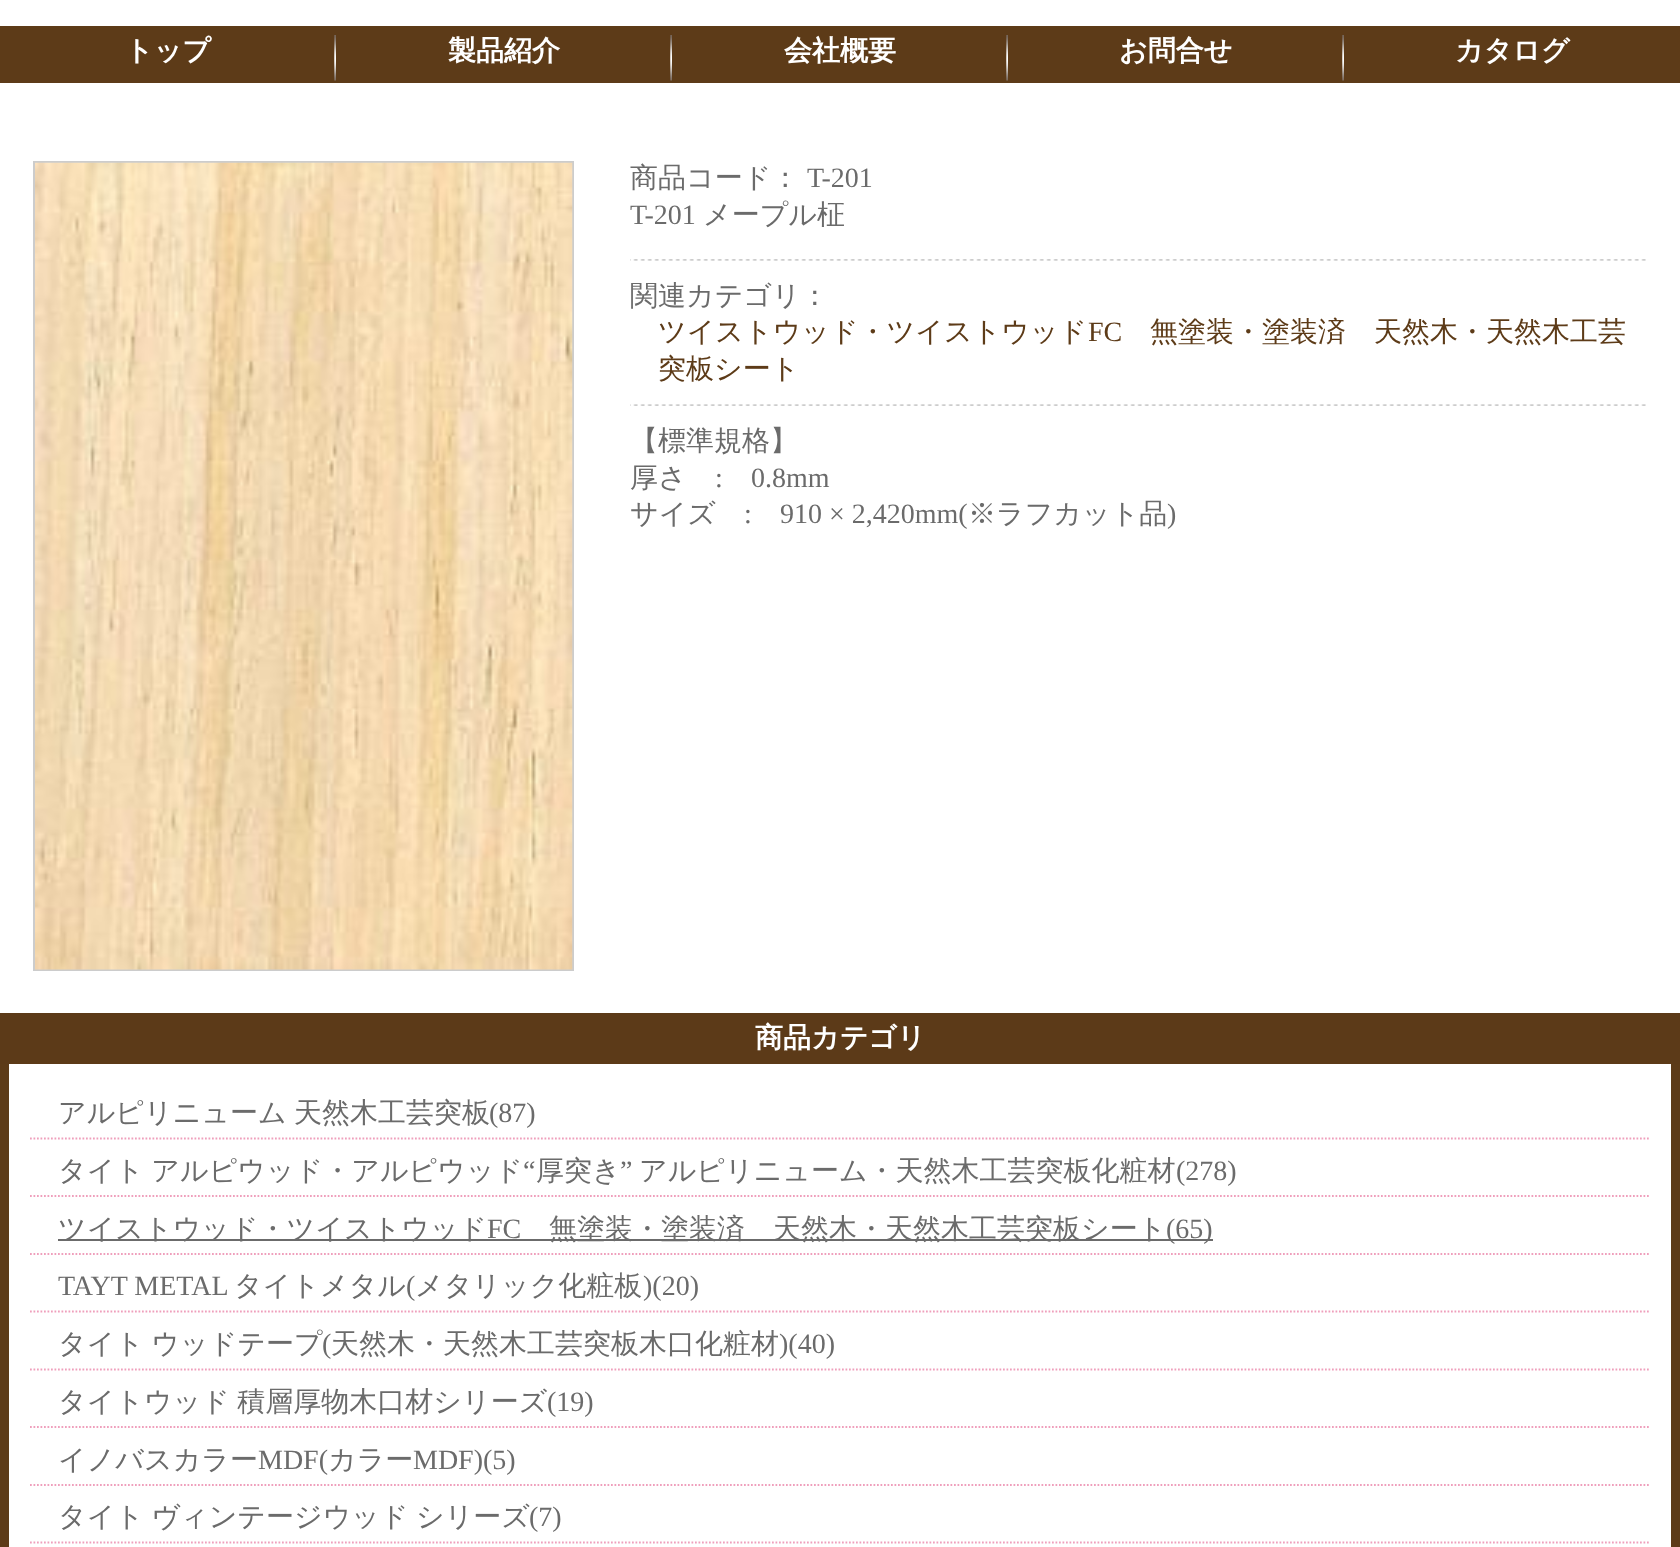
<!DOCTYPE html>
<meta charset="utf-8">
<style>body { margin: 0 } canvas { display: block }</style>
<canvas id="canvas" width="1680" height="1547"></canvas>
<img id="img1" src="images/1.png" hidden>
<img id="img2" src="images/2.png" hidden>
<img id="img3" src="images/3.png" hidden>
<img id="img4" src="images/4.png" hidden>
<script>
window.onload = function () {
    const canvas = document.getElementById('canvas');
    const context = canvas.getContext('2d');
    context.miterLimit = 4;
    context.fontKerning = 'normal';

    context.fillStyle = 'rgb(255, 255, 255)';
    context.fillRect(0, 0, 1680, 1547);
    context.fillStyle = 'rgb(93, 59, 24)';
    context.fillRect(0, 26, 1680, 57);
    context.drawImage(document.getElementById('img1'), 334, 35, 2, 46);
    context.drawImage(document.getElementById('img1'), 670, 35, 2, 46);
    context.drawImage(document.getElementById('img1'), 1006, 35, 2, 46);
    context.drawImage(document.getElementById('img1'), 1342, 35, 2, 46);
    context.strokeStyle = 'rgb(204, 204, 204)';
    context.lineWidth = 2;
    context.strokeRect(34, 162, 539, 808);
    context.drawImage(document.getElementById('img2'), 35, 162, 538, 808);
    context.drawImage(document.getElementById('img3'), 630, 259, 1016, 2);
    context.drawImage(document.getElementById('img4'), 630, 404, 1016, 2);
    context.fillStyle = 'rgb(92, 58, 24)';
    context.fillRect(0, 1013, 1680, 51);
    context.fillStyle = 'rgb(93, 59, 24)';
    context.fillRect(1671, 1064, 9, 483);
    context.fillRect(0, 1064, 9, 483);
    context.beginPath();
    context.moveTo(30, 1138.5);
    context.lineTo(1650, 1138.5);
    context.strokeStyle = 'rgb(239, 159, 188)';
    context.lineWidth = 1.8;
    context.setLineDash([1.75, 1.75]);
    context.stroke();
    context.beginPath();
    context.moveTo(30, 1196);
    context.lineTo(1650, 1196);
    context.stroke();
    context.beginPath();
    context.moveTo(30, 1254);
    context.lineTo(1650, 1254);
    context.stroke();
    context.fillStyle = 'rgb(107, 107, 107)';
    context.fillRect(58, 1239, 1155, 2);
    context.beginPath();
    context.moveTo(30, 1311.5);
    context.lineTo(1650, 1311.5);
    context.stroke();
    context.beginPath();
    context.moveTo(30, 1369.5);
    context.lineTo(1650, 1369.5);
    context.stroke();
    context.beginPath();
    context.moveTo(30, 1427);
    context.lineTo(1650, 1427);
    context.stroke();
    context.beginPath();
    context.moveTo(30, 1485);
    context.lineTo(1650, 1485);
    context.stroke();
    context.beginPath();
    context.moveTo(30, 1542.5);
    context.lineTo(1650, 1542.5);
    context.stroke();
    context.font = 'bold 28px WenQuanYi Zen Hei';
    context.fillStyle = 'rgb(255, 255, 255)';
    context.fillText('トップ', 125, 60);
    context.fillText('製品紹介', 448, 60);
    context.fillText('会社概要', 784, 60);
    context.fillText('お問合せ', 1119, 60);
    context.fillText('カタログ', 1455, 60);
    context.font = '500 28px WenQuanYi Zen Hei';
    context.fillStyle = 'rgb(107, 107, 107)';
    context.fillText('商品コード：', 630, 187);
    context.font = '28px Liberation Serif';
    context.fillText('T-201', 807, 187);
    context.fillText('T-201', 630, 224);
    context.font = '500 28px WenQuanYi Zen Hei';
    context.fillText('メープル柾', 703, 224);
    context.fillText('関連カテゴリ：', 630, 305);
    context.fillStyle = 'rgb(93, 59, 24)';
    context.fillText('ツイストウッド・ツイストウッド', 658, 341);
    context.font = '28px Liberation Serif';
    context.fillText('FC', 1088, 341);
    context.font = '500 28px WenQuanYi Zen Hei';
    context.fillText('無塗装・塗装済　天然木・天然木工芸', 1150, 341);
    context.fillText('突板シート', 658, 378);
    context.fillStyle = 'rgb(107, 107, 107)';
    context.fillText('【標準規格】', 630, 450);
    context.fillText('厚さ', 630, 487);
    context.font = '28px Liberation Serif';
    context.fillText(':', 715, 487);
    context.fillText('0.8mm', 751, 487);
    context.font = '500 28px WenQuanYi Zen Hei';
    context.fillText('サイズ', 630, 523);
    context.font = '28px Liberation Serif';
    context.fillText(':', 744, 523);
    context.fillText('910 × 2,420mm(', 780, 523);
    context.font = '500 28px WenQuanYi Zen Hei';
    context.fillText('※ラフカット品', 968, 523);
    context.font = '28px Liberation Serif';
    context.fillText(')', 1167, 523);
    context.font = 'bold 28px WenQuanYi Zen Hei';
    context.fillStyle = 'rgb(255, 255, 255)';
    context.fillText('商品カテゴリ', 755, 1047);
    context.wordSpacing = '-1px';
    context.font = '500 28px WenQuanYi Zen Hei';
    context.fillStyle = 'rgb(107, 107, 107)';
    context.fillText('アルピリニューム 天然木工芸突板', 58, 1122);
    context.wordSpacing = '0px';
    context.font = '28px Liberation Serif';
    context.fillText('(87)', 489, 1122);
    context.wordSpacing = '-1px';
    context.font = '500 28px WenQuanYi Zen Hei';
    context.fillText('タイト アルピウッド・アルピウッド', 58, 1180);
    context.wordSpacing = '0px';
    context.font = '28px Liberation Serif';
    context.fillText('“', 523, 1180);
    context.font = '500 28px WenQuanYi Zen Hei';
    context.fillText('厚突き', 536, 1180);
    context.font = '28px Liberation Serif';
    context.fillText('”', 620, 1180);
    context.font = '500 28px WenQuanYi Zen Hei';
    context.fillText('アルピリニューム・天然木工芸突板化粧材', 639, 1180);
    context.font = '28px Liberation Serif';
    context.fillText('(278)', 1176, 1180);
    context.font = '500 28px WenQuanYi Zen Hei';
    context.fillText('ツイストウッド・ツイストウッド', 58, 1238);
    context.font = '28px Liberation Serif';
    context.fillText('FC', 487, 1238);
    context.font = '500 28px WenQuanYi Zen Hei';
    context.fillText('無塗装・塗装済　天然木・天然木工芸突板シート', 549, 1238);
    context.font = '28px Liberation Serif';
    context.fillText('(65)', 1166, 1238);
    context.fillText('TAYT METAL', 58, 1295);
    context.font = '500 28px WenQuanYi Zen Hei';
    context.fillText('タイトメタル', 234, 1295);
    context.font = '28px Liberation Serif';
    context.fillText('(', 406, 1295);
    context.font = '500 28px WenQuanYi Zen Hei';
    context.fillText('メタリック化粧板', 415, 1295);
    context.font = '28px Liberation Serif';
    context.fillText(')(20)', 643, 1295);
    context.wordSpacing = '-1px';
    context.font = '500 28px WenQuanYi Zen Hei';
    context.fillText('タイト ウッドテープ', 58, 1353);
    context.wordSpacing = '0px';
    context.font = '28px Liberation Serif';
    context.fillText('(', 322, 1353);
    context.font = '500 28px WenQuanYi Zen Hei';
    context.fillText('天然木・天然木工芸突板木口化粧材', 331, 1353);
    context.font = '28px Liberation Serif';
    context.fillText(')(40)', 779, 1353);
    context.wordSpacing = '-1px';
    context.font = '500 28px WenQuanYi Zen Hei';
    context.fillText('タイトウッド 積層厚物木口材シリーズ', 58, 1411);
    context.wordSpacing = '0px';
    context.font = '28px Liberation Serif';
    context.fillText('(19)', 547, 1411);
    context.font = '500 28px WenQuanYi Zen Hei';
    context.fillText('イノバスカラー', 58, 1469);
    context.font = '28px Liberation Serif';
    context.fillText('MDF(', 258, 1469);
    context.font = '500 28px WenQuanYi Zen Hei';
    context.fillText('カラー', 328, 1469);
    context.font = '28px Liberation Serif';
    context.fillText('MDF)(5)', 413, 1469);
    context.wordSpacing = '-1px';
    context.font = '500 28px WenQuanYi Zen Hei';
    context.fillText('タイト ヴィンテージウッド シリーズ', 58, 1526);
    context.wordSpacing = '0px';
    context.font = '28px Liberation Serif';
    context.fillText('(7)', 529, 1526);
};
</script>
